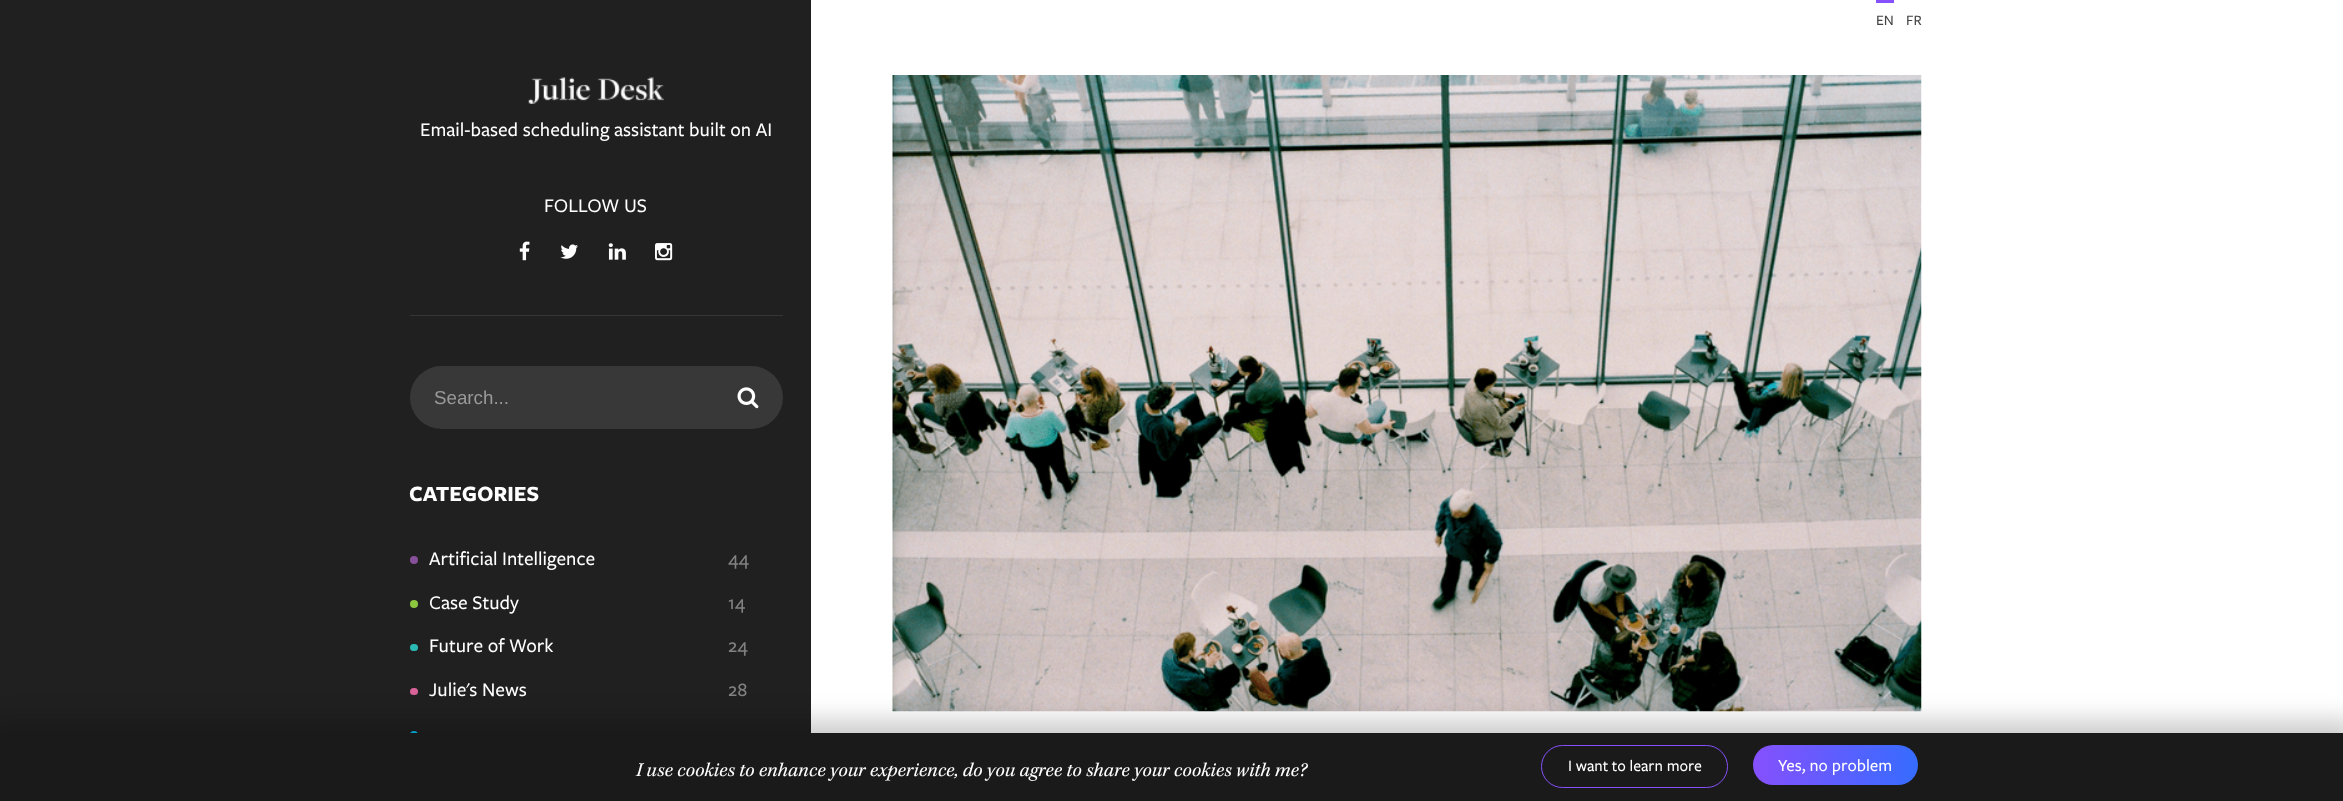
<!DOCTYPE html>
<meta charset="utf-8">
<style>body { margin: 0 } canvas { display: block }</style>
<canvas id="canvas" width="2343" height="801"></canvas>
<img id="img1" src="images/1.png" hidden>
<img id="img2" src="images/2.png" hidden>
<img id="img3" src="images/3.png" hidden>
<img id="img4" src="images/4.png" hidden>
<img id="img5" src="images/5.png" hidden>
<img id="img6" src="images/6.png" hidden>
<img id="img7" src="images/7.png" hidden>
<script>
window.onload = function () {
    const canvas = document.getElementById('canvas');
    const context = canvas.getContext('2d');
    context.miterLimit = 4;
    context.fontKerning = 'normal';
    let gradient;

    context.fillStyle = 'rgb(255, 255, 255)';
    context.fillRect(0, 0, 2343, 801);
    context.fillStyle = 'rgb(32, 32, 32)';
    context.fillRect(0, 0, 811, 733);
    context.fillStyle = 'rgb(134, 80, 253)';
    context.fillRect(1876, 0, 18, 3);
    context.drawImage(document.getElementById('img1'), 892, 75, 1030, 637);
    context.drawImage(document.getElementById('img2'), 528, 77, 136, 27);
    context.fillStyle = 'rgb(53, 53, 53)';
    context.fillRect(410, 315, 373, 1);
    context.drawImage(document.getElementById('img3'), 519, 241, 11, 20);
    context.drawImage(document.getElementById('img4'), 560, 244, 18, 15);
    context.drawImage(document.getElementById('img5'), 608, 243, 18, 17);
    context.drawImage(document.getElementById('img6'), 655, 243, 18, 18);
    context.fillStyle = 'rgb(56, 56, 56)';
    context.beginPath();
    context.roundRect(410, 366, 373, 63, 31.5);
    context.fill();
    context.drawImage(document.getElementById('img7'), 737, 387, 22, 22);
    context.fillStyle = 'rgb(133, 80, 153)';
    context.beginPath();
    context.arc(414, 560, 4, 0, 2 * Math.PI);
    context.fill();
    context.fillStyle = 'rgb(141, 198, 63)';
    context.beginPath();
    context.arc(414, 604, 4, 0, 2 * Math.PI);
    context.fill();
    context.fillStyle = 'rgb(43, 186, 179)';
    context.beginPath();
    context.roundRect(410, 644, 8, 7, 3.5);
    context.fill();
    context.fillStyle = 'rgb(216, 99, 153)';
    context.beginPath();
    context.roundRect(410, 688, 8, 7, 3.5);
    context.fill();
    context.fillStyle = 'rgb(0, 191, 243)';
    context.beginPath();
    context.arc(414, 735, 4, 0, 2 * Math.PI);
    context.fill();
    context.fillStyle = 'rgba(0, 0, 0, 0.2)';
    context.filter = 'blur(12.5px)';
    context.beginPath();
    context.rect(-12, 720, 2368, 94);
    context.fill();
    context.filter = 'none';
    context.fillStyle = 'rgb(26, 26, 26)';
    context.fillRect(0, 733, 2343, 68);
    context.beginPath();
    context.roundRect(1541.5, 745.5, 186, 42, 21);
    context.strokeStyle = 'rgb(134, 80, 253)';
    context.stroke();
    gradient = context.createLinearGradient(1588, 765, 1918, 765);
    gradient.addColorStop(0, 'rgb(134, 80, 253)');
    gradient.addColorStop(0.5, 'rgb(134, 80, 253)');
    gradient.addColorStop(1, 'rgb(54, 108, 255)');
    context.fillStyle = gradient;
    context.beginPath();
    context.roundRect(1753, 745, 165, 40, 20);
    context.fill();
    context.font = '500 15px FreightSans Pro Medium';
    context.fillStyle = 'rgb(68, 68, 68)';
    context.fillText('EN', 1876, 25);
    context.fillText('FR', 1906, 25);
    context.font = '500 20px FreightSans Pro Medium';
    context.fillStyle = 'rgb(255, 255, 255)';
    context.fillText('Email-based scheduling assistant built on AI', 420, 136);
    context.fillText('FOLLOW US', 544, 212);
    context.font = '18.75px Liberation Sans';
    context.fillStyle = 'rgb(153, 153, 153)';
    context.fillText('Search...', 434, 404);
    context.font = 'bold 22.5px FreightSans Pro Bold';
    context.fillStyle = 'rgb(255, 255, 255)';
    context.fillText('CATEGORIES', 409, 501);
    context.font = '500 20px FreightSans Pro Medium';
    context.fillText('Artificial Intelligence', 429, 565);
    context.fillStyle = 'rgb(129, 129, 129)';
    context.fillText('44', 728, 565);
    context.fillStyle = 'rgb(255, 255, 255)';
    context.fillText('Case Study', 429, 609);
    context.fillStyle = 'rgb(129, 129, 129)';
    context.fillText('14', 728, 609);
    context.fillStyle = 'rgb(255, 255, 255)';
    context.fillText('Future of Work', 429, 652);
    context.fillStyle = 'rgb(129, 129, 129)';
    context.fillText('24', 728, 652);
    context.fillStyle = 'rgb(255, 255, 255)';
    context.fillText('Julie\'s News', 429, 696);
    context.fillStyle = 'rgb(129, 129, 129)';
    context.fillText('28', 728, 696);
    context.font = 'italic 20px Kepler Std';
    context.fillStyle = 'rgb(255, 255, 255)';
    context.fillText('I use cookies to enhance your experience, do you agree to share your cookies with me?', 636, 776);
    context.font = '500 16.25px FreightSans Pro Medium';
    context.fillText('I want to learn more', 1568, 771);
    context.font = '500 17.5px FreightSans Pro Medium';
    context.fillText('Yes, no problem', 1778, 771);
};
</script>
